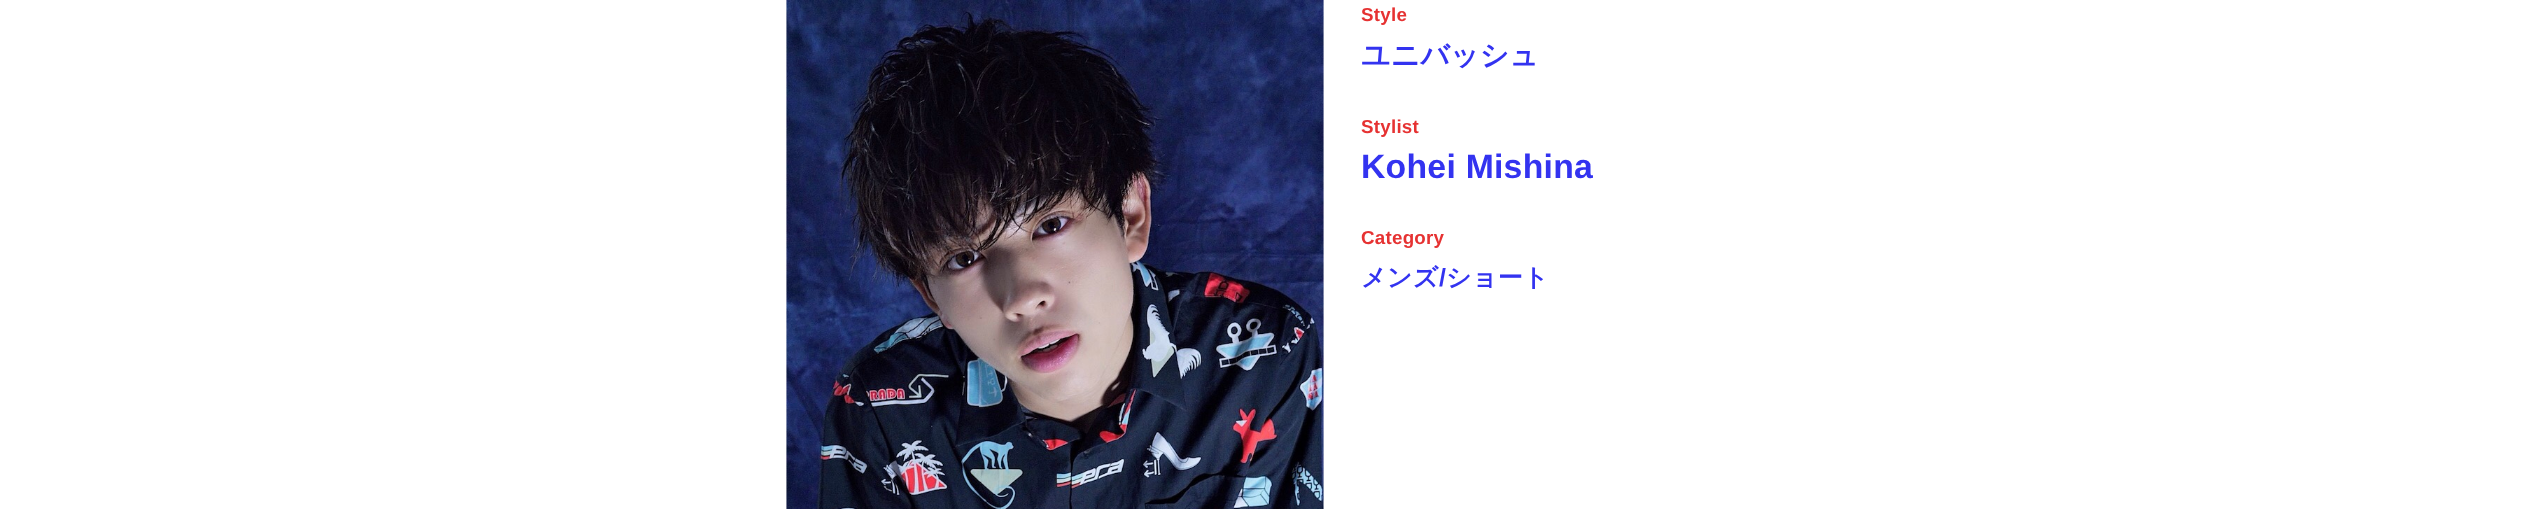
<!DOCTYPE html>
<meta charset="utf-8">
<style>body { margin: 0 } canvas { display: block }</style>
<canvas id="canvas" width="2522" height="509"></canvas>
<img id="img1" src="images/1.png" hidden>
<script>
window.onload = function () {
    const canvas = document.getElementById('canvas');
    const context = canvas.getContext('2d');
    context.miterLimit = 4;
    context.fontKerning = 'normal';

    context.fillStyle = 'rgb(255, 255, 255)';
    context.fillRect(0, 0, 2522, 509);
    context.drawImage(document.getElementById('img1'), 786, 0, 538, 509);
    context.letterSpacing = '0.25px';
    context.font = 'bold 18.75px Liberation Sans';
    context.fillStyle = 'rgb(230, 50, 50)';
    context.fillText('Style', 1361, 21);
    context.font = 'bold 28.75px WenQuanYi Zen Hei';
    context.fillStyle = 'rgb(51, 51, 240)';
    context.fillText('ユニバッシュ', 1361, 65);
    context.font = 'bold 18.75px Liberation Sans';
    context.fillStyle = 'rgb(230, 50, 50)';
    context.fillText('Stylist', 1361, 133);
    context.font = 'bold 33.75px Liberation Sans';
    context.fillStyle = 'rgb(51, 51, 240)';
    context.fillText('Kohei Mishina', 1361, 178);
    context.font = 'bold 18.75px Liberation Sans';
    context.fillStyle = 'rgb(230, 50, 50)';
    context.fillText('Category', 1361, 244);
    context.font = 'bold 25px WenQuanYi Zen Hei';
    context.fillStyle = 'rgb(51, 51, 240)';
    context.fillText('メンズ', 1361, 286);
    context.font = 'bold 25px Liberation Sans';
    context.fillText('/', 1439, 286);
    context.font = 'bold 25px WenQuanYi Zen Hei';
    context.fillText('ショート', 1446, 286);
};
</script>
